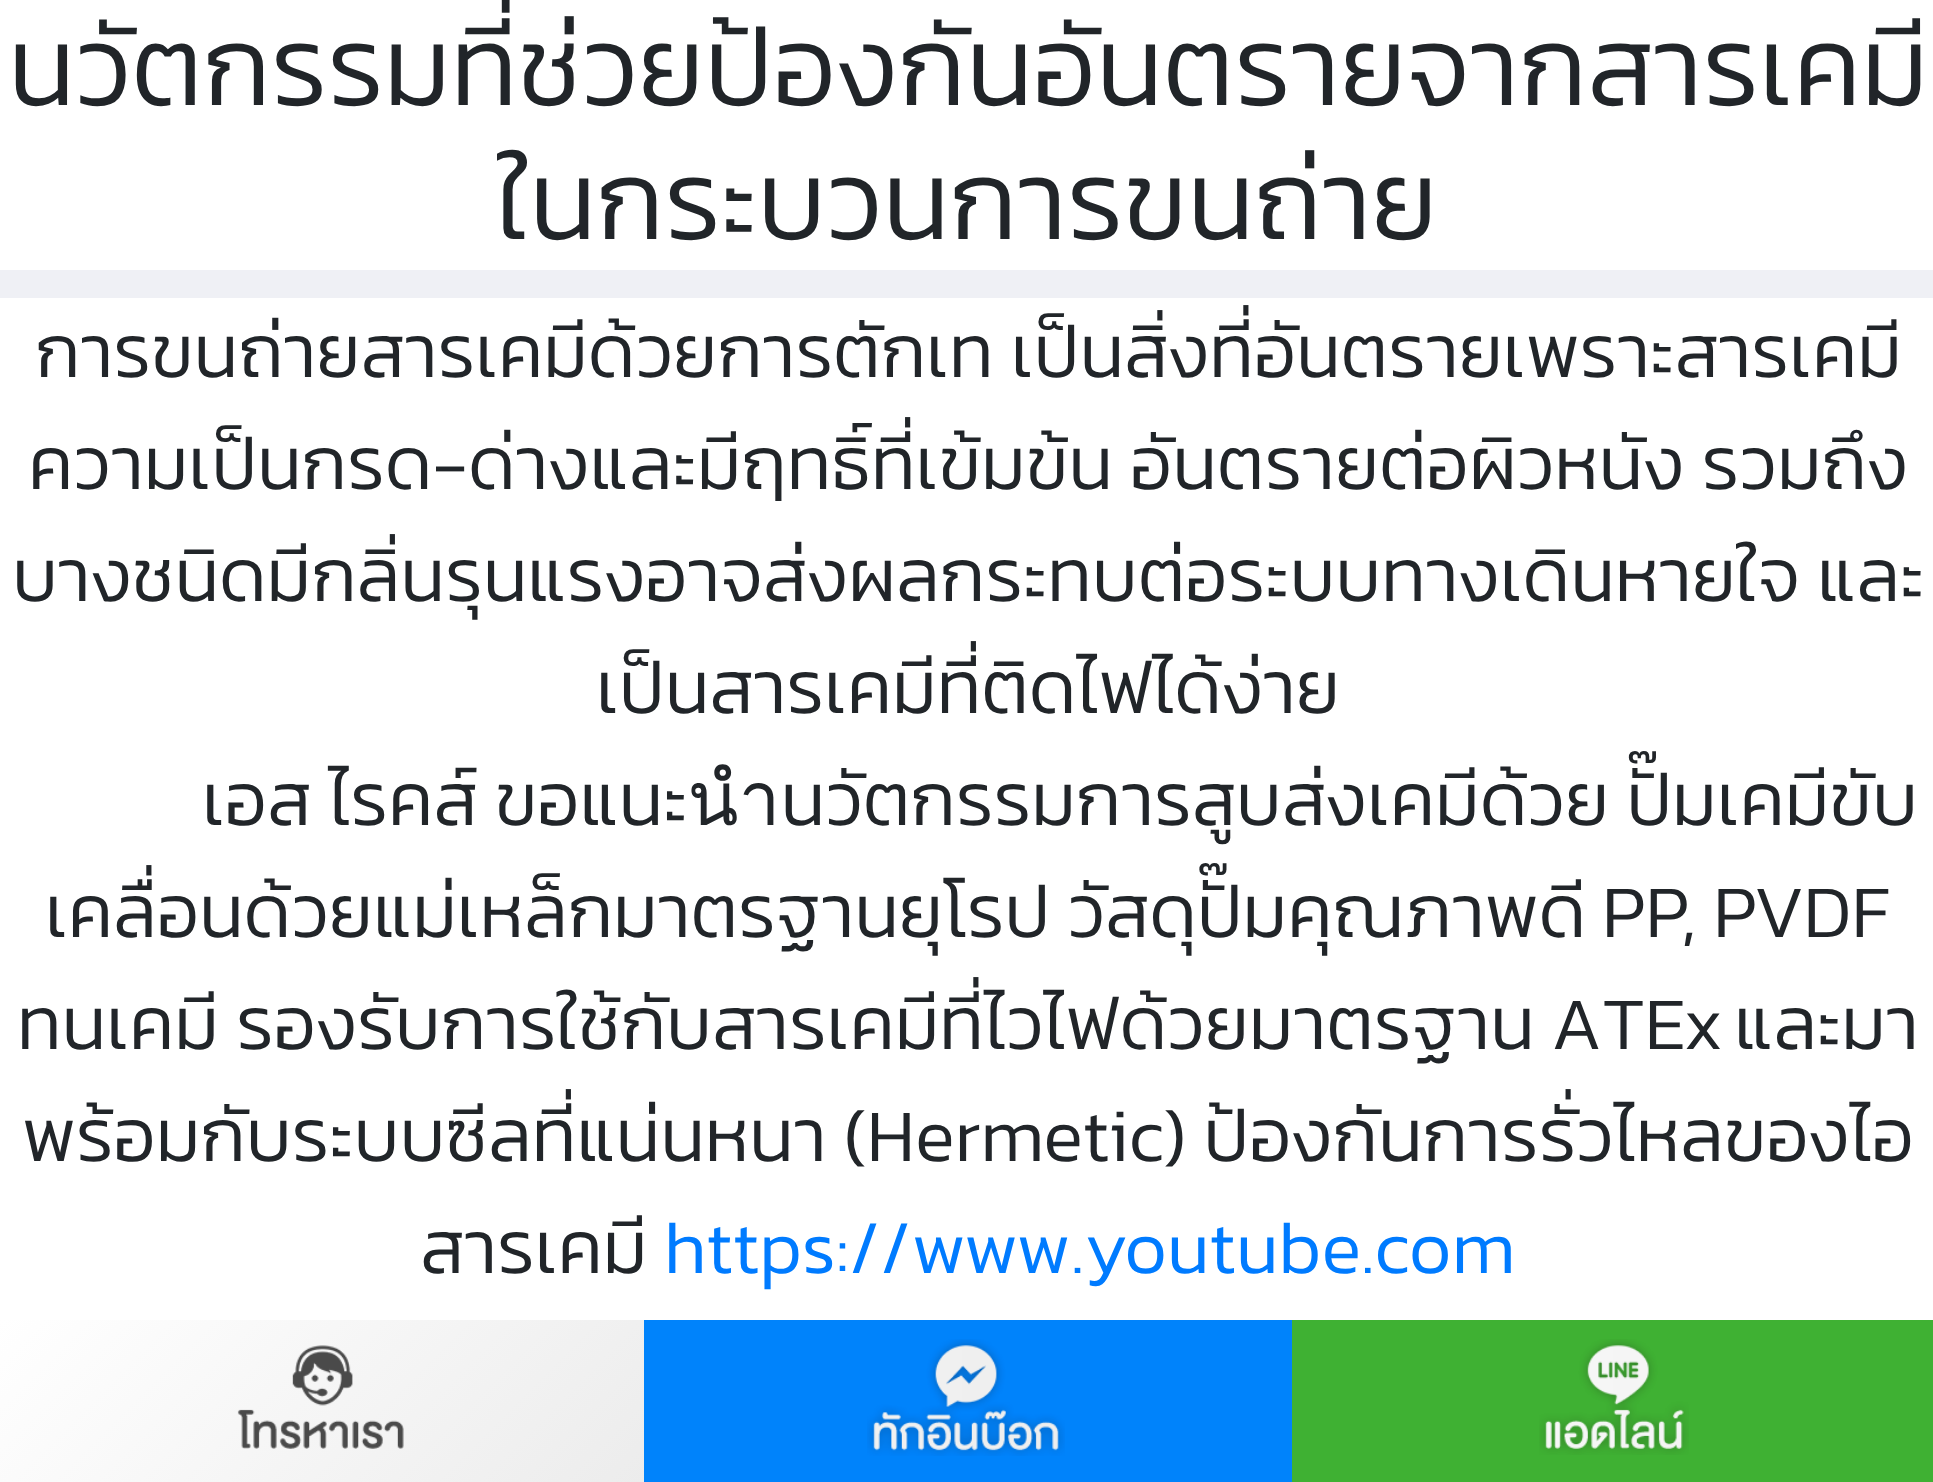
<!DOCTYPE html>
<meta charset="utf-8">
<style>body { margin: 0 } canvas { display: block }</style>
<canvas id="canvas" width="1933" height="1482"></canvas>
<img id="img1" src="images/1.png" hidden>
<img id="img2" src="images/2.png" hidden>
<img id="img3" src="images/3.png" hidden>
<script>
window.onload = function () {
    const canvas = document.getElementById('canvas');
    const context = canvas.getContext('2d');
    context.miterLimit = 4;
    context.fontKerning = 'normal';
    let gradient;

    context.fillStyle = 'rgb(239, 240, 245)';
    context.fillRect(0, 0, 1933, 1482);
    context.fillStyle = 'rgb(255, 255, 255)';
    context.fillRect(0, 0, 1933, 270);
    context.fillRect(0, 298, 1933, 1022);
    gradient = context.createLinearGradient(120, 1200, 524, 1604);
    gradient.addColorStop(0, 'rgb(255, 255, 255)');
    gradient.addColorStop(1, 'rgb(236, 236, 236)');
    context.fillStyle = gradient;
    context.fillRect(0, 1320, 644, 162);
    context.drawImage(document.getElementById('img1'), 237, 1345, 167, 104);
    context.fillStyle = 'rgb(0, 131, 251)';
    context.fillRect(644, 1320, 648, 162);
    context.drawImage(document.getElementById('img2'), 867, 1339, 198, 117);
    context.fillStyle = 'rgb(63, 177, 51)';
    context.fillRect(1292, 1320, 641, 162);
    context.drawImage(document.getElementById('img3'), 1539, 1339, 150, 116);
    context.font = '300 112px Kanit';
    context.fillStyle = 'rgb(33, 37, 41)';
    context.fillText('นวัตกรรมที่ช่วยป้องกันอันตรายจากสารเคมี', 8, 105);
    context.fillText('ในกระบวนการขนถ่าย', 497, 239);
    context.font = '300 74.7px Kanit';
    context.fillText('การขนถ่ายสารเคมีด้วยการตักเท เป็นสิ่งที่อันตรายเพราะสารเคมี', 35, 377);
    context.fillText('ความเป็นกรด-ด่างและมีฤทธิ์ที่เข้มข้น อันตรายต่อผิวหนัง รวมถึง', 28, 489);
    context.fillText('บางชนิดมีกลิ่นรุนแรงอาจส่งผลกระทบต่อระบบทางเดินหายใจ และ', 12, 601);
    context.fillText('เป็นสารเคมีที่ติดไฟได้ง่าย', 596, 713);
    context.fillText('เอส ไรคส์ ขอแนะนำนวัตกรรมการสูบส่งเคมีด้วย ปั๊มเคมีขับ', 202, 825);
    context.fillText('เคลื่อนด้วยแม่เหล็กมาตรฐานยุโรป วัสดุปั๊มคุณภาพดี', 45, 937);
    context.fillText('PP, PVDF', 1602, 937);
    context.fillText('ทนเคมี รองรับการใช้กับสารเคมีที่ไวไฟด้วยมาตรฐาน', 17, 1049);
    context.fillText('ATEx', 1551, 1049);
    context.fillText('และมา', 1734, 1049);
    context.fillText('พร้อมกับระบบซีลที่แน่นหนา (Hermetic) ป้องกันการรั่วไหลของไอ', 22, 1161);
    context.fillText('สารเคมี', 420, 1273);
    context.fillStyle = 'rgb(0, 123, 255)';
    context.fillText('https://www.youtube.com', 664, 1273);
};
</script>
